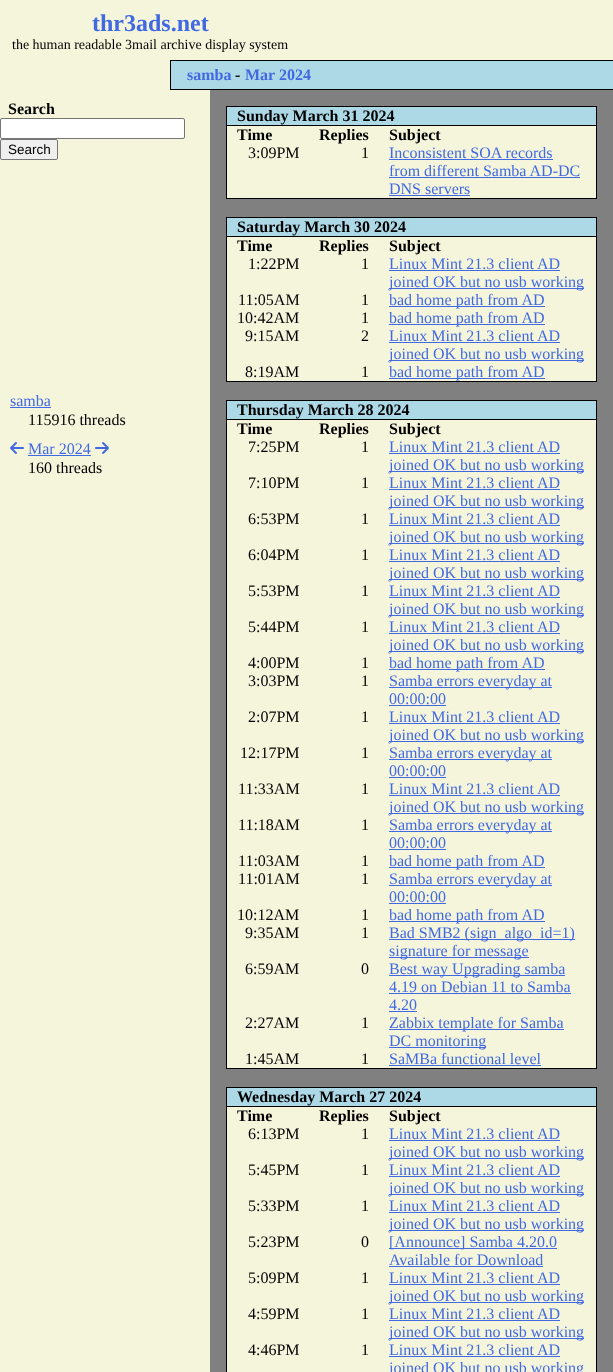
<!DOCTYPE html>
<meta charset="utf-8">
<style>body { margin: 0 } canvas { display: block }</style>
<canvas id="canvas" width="613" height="1372"></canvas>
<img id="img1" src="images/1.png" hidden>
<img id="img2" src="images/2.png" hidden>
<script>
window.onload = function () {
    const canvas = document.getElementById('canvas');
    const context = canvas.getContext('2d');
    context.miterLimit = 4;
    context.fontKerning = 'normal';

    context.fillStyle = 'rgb(245, 245, 220)';
    context.fillRect(0, 0, 613, 1372);
    context.fillStyle = 'rgb(173, 216, 230)';
    context.fillRect(171, 61, 442, 28);
    context.fillStyle = 'rgb(0, 0, 0)';
    context.fillRect(170, 60, 443, 1);
    context.fillRect(170, 89, 443, 1);
    context.fillRect(170, 60, 1, 30);
    context.fillStyle = 'rgb(255, 255, 255)';
    context.beginPath();
    context.roundRect(0.5, 118.5, 184, 20, 1.5);
    context.fill();
    context.strokeStyle = 'rgb(118, 118, 118)';
    context.stroke();
    context.fillStyle = 'rgb(239, 239, 239)';
    context.beginPath();
    context.roundRect(0.5, 139.5, 57, 20, 1.5);
    context.fill();
    context.stroke();
    context.fillStyle = 'rgb(65, 105, 225)';
    context.fillRect(10, 407, 41, 1);
    context.drawImage(document.getElementById('img1'), 10, 442, 14, 12);
    context.fillRect(28, 455, 63, 1);
    context.drawImage(document.getElementById('img2'), 95, 442, 14, 12);
    context.fillStyle = 'rgb(128, 128, 128)';
    context.fillRect(210, 90, 403, 1282);
    context.fillStyle = 'rgb(173, 216, 230)';
    context.fillRect(227, 107, 369, 18);
    context.fillStyle = 'rgb(0, 0, 0)';
    context.fillRect(226, 198, 371, 1);
    context.fillRect(596, 106, 1, 93);
    context.fillRect(226, 106, 1, 93);
    context.fillRect(226, 106, 371, 1);
    context.fillRect(226, 125, 371, 1);
    context.fillStyle = 'rgb(245, 245, 220)';
    context.fillRect(227, 126, 369, 18);
    context.fillRect(227, 144, 369, 54);
    context.fillStyle = 'rgb(65, 105, 225)';
    context.fillRect(389, 159, 164, 1);
    context.fillRect(389, 177, 191, 1);
    context.fillRect(389, 195, 81, 1);
    context.fillStyle = 'rgb(173, 216, 230)';
    context.fillRect(227, 218, 369, 18);
    context.fillStyle = 'rgb(0, 0, 0)';
    context.fillRect(226, 381, 371, 1);
    context.fillRect(596, 217, 1, 165);
    context.fillRect(226, 217, 1, 165);
    context.fillRect(226, 217, 371, 1);
    context.fillRect(226, 236, 371, 1);
    context.fillStyle = 'rgb(245, 245, 220)';
    context.fillRect(227, 237, 369, 18);
    context.fillRect(227, 255, 369, 36);
    context.fillStyle = 'rgb(65, 105, 225)';
    context.fillRect(389, 270, 171, 1);
    context.fillRect(389, 288, 195, 1);
    context.fillStyle = 'rgb(245, 245, 220)';
    context.fillRect(227, 291, 369, 18);
    context.fillStyle = 'rgb(65, 105, 225)';
    context.fillRect(389, 306, 156, 1);
    context.fillStyle = 'rgb(245, 245, 220)';
    context.fillRect(227, 309, 369, 18);
    context.fillStyle = 'rgb(65, 105, 225)';
    context.fillRect(389, 324, 156, 1);
    context.fillStyle = 'rgb(245, 245, 220)';
    context.fillRect(227, 327, 369, 36);
    context.fillStyle = 'rgb(65, 105, 225)';
    context.fillRect(389, 342, 171, 1);
    context.fillRect(389, 360, 195, 1);
    context.fillStyle = 'rgb(245, 245, 220)';
    context.fillRect(227, 363, 369, 18);
    context.fillStyle = 'rgb(65, 105, 225)';
    context.fillRect(389, 378, 156, 1);
    context.fillStyle = 'rgb(173, 216, 230)';
    context.fillRect(227, 401, 369, 18);
    context.fillStyle = 'rgb(0, 0, 0)';
    context.fillRect(226, 1068, 371, 1);
    context.fillRect(596, 400, 1, 669);
    context.fillRect(226, 400, 1, 669);
    context.fillRect(226, 400, 371, 1);
    context.fillRect(226, 419, 371, 1);
    context.fillStyle = 'rgb(245, 245, 220)';
    context.fillRect(227, 420, 369, 18);
    context.fillRect(227, 438, 369, 36);
    context.fillStyle = 'rgb(65, 105, 225)';
    context.fillRect(389, 453, 171, 1);
    context.fillRect(389, 471, 195, 1);
    context.fillStyle = 'rgb(245, 245, 220)';
    context.fillRect(227, 474, 369, 36);
    context.fillStyle = 'rgb(65, 105, 225)';
    context.fillRect(389, 489, 171, 1);
    context.fillRect(389, 507, 195, 1);
    context.fillStyle = 'rgb(245, 245, 220)';
    context.fillRect(227, 510, 369, 36);
    context.fillStyle = 'rgb(65, 105, 225)';
    context.fillRect(389, 525, 171, 1);
    context.fillRect(389, 543, 195, 1);
    context.fillStyle = 'rgb(245, 245, 220)';
    context.fillRect(227, 546, 369, 36);
    context.fillStyle = 'rgb(65, 105, 225)';
    context.fillRect(389, 561, 171, 1);
    context.fillRect(389, 579, 195, 1);
    context.fillStyle = 'rgb(245, 245, 220)';
    context.fillRect(227, 582, 369, 36);
    context.fillStyle = 'rgb(65, 105, 225)';
    context.fillRect(389, 597, 171, 1);
    context.fillRect(389, 615, 195, 1);
    context.fillStyle = 'rgb(245, 245, 220)';
    context.fillRect(227, 618, 369, 36);
    context.fillStyle = 'rgb(65, 105, 225)';
    context.fillRect(389, 633, 171, 1);
    context.fillRect(389, 651, 195, 1);
    context.fillStyle = 'rgb(245, 245, 220)';
    context.fillRect(227, 654, 369, 18);
    context.fillStyle = 'rgb(65, 105, 225)';
    context.fillRect(389, 669, 156, 1);
    context.fillStyle = 'rgb(245, 245, 220)';
    context.fillRect(227, 672, 369, 36);
    context.fillStyle = 'rgb(65, 105, 225)';
    context.fillRect(389, 687, 163, 1);
    context.fillRect(389, 705, 57, 1);
    context.fillStyle = 'rgb(245, 245, 220)';
    context.fillRect(227, 708, 369, 36);
    context.fillStyle = 'rgb(65, 105, 225)';
    context.fillRect(389, 723, 171, 1);
    context.fillRect(389, 741, 195, 1);
    context.fillStyle = 'rgb(245, 245, 220)';
    context.fillRect(227, 744, 369, 36);
    context.fillStyle = 'rgb(65, 105, 225)';
    context.fillRect(389, 759, 163, 1);
    context.fillRect(389, 777, 57, 1);
    context.fillStyle = 'rgb(245, 245, 220)';
    context.fillRect(227, 780, 369, 36);
    context.fillStyle = 'rgb(65, 105, 225)';
    context.fillRect(389, 795, 171, 1);
    context.fillRect(389, 813, 195, 1);
    context.fillStyle = 'rgb(245, 245, 220)';
    context.fillRect(227, 816, 369, 36);
    context.fillStyle = 'rgb(65, 105, 225)';
    context.fillRect(389, 831, 163, 1);
    context.fillRect(389, 849, 57, 1);
    context.fillStyle = 'rgb(245, 245, 220)';
    context.fillRect(227, 852, 369, 18);
    context.fillStyle = 'rgb(65, 105, 225)';
    context.fillRect(389, 867, 156, 1);
    context.fillStyle = 'rgb(245, 245, 220)';
    context.fillRect(227, 870, 369, 36);
    context.fillStyle = 'rgb(65, 105, 225)';
    context.fillRect(389, 885, 163, 1);
    context.fillRect(389, 903, 57, 1);
    context.fillStyle = 'rgb(245, 245, 220)';
    context.fillRect(227, 906, 369, 18);
    context.fillStyle = 'rgb(65, 105, 225)';
    context.fillRect(389, 921, 156, 1);
    context.fillStyle = 'rgb(245, 245, 220)';
    context.fillRect(227, 924, 369, 36);
    context.fillStyle = 'rgb(65, 105, 225)';
    context.fillRect(389, 939, 186, 1);
    context.fillRect(389, 957, 140, 1);
    context.fillStyle = 'rgb(245, 245, 220)';
    context.fillRect(227, 960, 369, 54);
    context.fillStyle = 'rgb(65, 105, 225)';
    context.fillRect(389, 975, 176, 1);
    context.fillRect(389, 993, 182, 1);
    context.fillRect(389, 1011, 28, 1);
    context.fillStyle = 'rgb(245, 245, 220)';
    context.fillRect(227, 1014, 369, 36);
    context.fillStyle = 'rgb(65, 105, 225)';
    context.fillRect(389, 1029, 175, 1);
    context.fillRect(389, 1047, 97, 1);
    context.fillStyle = 'rgb(245, 245, 220)';
    context.fillRect(227, 1050, 369, 18);
    context.fillStyle = 'rgb(65, 105, 225)';
    context.fillRect(389, 1065, 152, 1);
    context.fillStyle = 'rgb(173, 216, 230)';
    context.fillRect(227, 1088, 369, 18);
    context.fillStyle = 'rgb(0, 0, 0)';
    context.fillRect(596, 1087, 1, 285);
    context.fillRect(226, 1087, 1, 285);
    context.fillRect(226, 1087, 371, 1);
    context.fillRect(226, 1106, 371, 1);
    context.fillStyle = 'rgb(245, 245, 220)';
    context.fillRect(227, 1107, 369, 18);
    context.fillRect(227, 1125, 369, 36);
    context.fillStyle = 'rgb(65, 105, 225)';
    context.fillRect(389, 1140, 171, 1);
    context.fillRect(389, 1158, 195, 1);
    context.fillStyle = 'rgb(245, 245, 220)';
    context.fillRect(227, 1161, 369, 36);
    context.fillStyle = 'rgb(65, 105, 225)';
    context.fillRect(389, 1176, 171, 1);
    context.fillRect(389, 1194, 195, 1);
    context.fillStyle = 'rgb(245, 245, 220)';
    context.fillRect(227, 1197, 369, 36);
    context.fillStyle = 'rgb(65, 105, 225)';
    context.fillRect(389, 1212, 171, 1);
    context.fillRect(389, 1230, 195, 1);
    context.fillStyle = 'rgb(245, 245, 220)';
    context.fillRect(227, 1233, 369, 36);
    context.fillStyle = 'rgb(65, 105, 225)';
    context.fillRect(389, 1248, 168, 1);
    context.fillRect(389, 1266, 154, 1);
    context.fillStyle = 'rgb(245, 245, 220)';
    context.fillRect(227, 1269, 369, 36);
    context.fillStyle = 'rgb(65, 105, 225)';
    context.fillRect(389, 1284, 171, 1);
    context.fillRect(389, 1302, 195, 1);
    context.fillStyle = 'rgb(245, 245, 220)';
    context.fillRect(227, 1305, 369, 36);
    context.fillStyle = 'rgb(65, 105, 225)';
    context.fillRect(389, 1320, 171, 1);
    context.fillRect(389, 1338, 195, 1);
    context.fillStyle = 'rgb(245, 245, 220)';
    context.fillRect(227, 1341, 369, 31);
    context.fillStyle = 'rgb(65, 105, 225)';
    context.fillRect(389, 1356, 171, 1);
    context.font = 'bold 24px Liberation Serif';
    context.fillText('thr3ads.net', 92, 31);
    context.font = '14px Liberation Serif';
    context.fillStyle = 'rgb(0, 0, 0)';
    context.fillText('the human readable 3mail archive display system', 12, 49);
    context.font = 'bold 16px Liberation Serif';
    context.fillStyle = 'rgb(65, 105, 225)';
    context.fillText('samba', 187, 80);
    context.fillStyle = 'rgb(0, 0, 0)';
    context.fillText('-', 235, 80);
    context.fillStyle = 'rgb(65, 105, 225)';
    context.fillText('Mar 2024', 245, 80);
    context.fillStyle = 'rgb(0, 0, 0)';
    context.fillText('Search', 8, 114);
    context.font = '13.5px Liberation Sans';
    context.fillText('Search', 8, 154);
    context.font = '16px Liberation Serif';
    context.fillStyle = 'rgb(65, 105, 225)';
    context.fillText('samba', 10, 406);
    context.fillStyle = 'rgb(0, 0, 0)';
    context.fillText('115916 threads', 28, 425);
    context.fillStyle = 'rgb(65, 105, 225)';
    context.fillText('Mar 2024', 28, 454);
    context.fillStyle = 'rgb(0, 0, 0)';
    context.fillText('160 threads', 28, 473);
    context.font = 'bold 16px Liberation Serif';
    context.fillText('Sunday March 31 2024', 237, 121);
    context.fillText('Time', 237, 140);
    context.fillText('Replies', 319, 140);
    context.fillText('Subject', 389, 140);
    context.font = '16px Liberation Serif';
    context.fillText('3:09PM', 248, 158);
    context.fillText('1', 361, 158);
    context.fillStyle = 'rgb(65, 105, 225)';
    context.fillText('Inconsistent SOA records', 389, 158);
    context.fillText('from different Samba AD-DC', 389, 176);
    context.fillText('DNS servers', 389, 194);
    context.font = 'bold 16px Liberation Serif';
    context.fillStyle = 'rgb(0, 0, 0)';
    context.fillText('Saturday March 30 2024', 237, 232);
    context.fillText('Time', 237, 251);
    context.fillText('Replies', 319, 251);
    context.fillText('Subject', 389, 251);
    context.font = '16px Liberation Serif';
    context.fillText('1:22PM', 248, 269);
    context.fillText('1', 361, 269);
    context.fillStyle = 'rgb(65, 105, 225)';
    context.fillText('Linux Mint 21.3 client AD', 389, 269);
    context.fillText('joined OK but no usb working', 389, 287);
    context.fillStyle = 'rgb(0, 0, 0)';
    context.fillText('11:05AM', 238, 305);
    context.fillText('1', 361, 305);
    context.fillStyle = 'rgb(65, 105, 225)';
    context.fillText('bad home path from AD', 389, 305);
    context.fillStyle = 'rgb(0, 0, 0)';
    context.fillText('10:42AM', 237, 323);
    context.fillText('1', 361, 323);
    context.fillStyle = 'rgb(65, 105, 225)';
    context.fillText('bad home path from AD', 389, 323);
    context.fillStyle = 'rgb(0, 0, 0)';
    context.fillText('9:15AM', 245, 341);
    context.fillText('2', 361, 341);
    context.fillStyle = 'rgb(65, 105, 225)';
    context.fillText('Linux Mint 21.3 client AD', 389, 341);
    context.fillText('joined OK but no usb working', 389, 359);
    context.fillStyle = 'rgb(0, 0, 0)';
    context.fillText('8:19AM', 245, 377);
    context.fillText('1', 361, 377);
    context.fillStyle = 'rgb(65, 105, 225)';
    context.fillText('bad home path from AD', 389, 377);
    context.font = 'bold 16px Liberation Serif';
    context.fillStyle = 'rgb(0, 0, 0)';
    context.fillText('Thursday March 28 2024', 237, 415);
    context.fillText('Time', 237, 434);
    context.fillText('Replies', 319, 434);
    context.fillText('Subject', 389, 434);
    context.font = '16px Liberation Serif';
    context.fillText('7:25PM', 248, 452);
    context.fillText('1', 361, 452);
    context.fillStyle = 'rgb(65, 105, 225)';
    context.fillText('Linux Mint 21.3 client AD', 389, 452);
    context.fillText('joined OK but no usb working', 389, 470);
    context.fillStyle = 'rgb(0, 0, 0)';
    context.fillText('7:10PM', 248, 488);
    context.fillText('1', 361, 488);
    context.fillStyle = 'rgb(65, 105, 225)';
    context.fillText('Linux Mint 21.3 client AD', 389, 488);
    context.fillText('joined OK but no usb working', 389, 506);
    context.fillStyle = 'rgb(0, 0, 0)';
    context.fillText('6:53PM', 248, 524);
    context.fillText('1', 361, 524);
    context.fillStyle = 'rgb(65, 105, 225)';
    context.fillText('Linux Mint 21.3 client AD', 389, 524);
    context.fillText('joined OK but no usb working', 389, 542);
    context.fillStyle = 'rgb(0, 0, 0)';
    context.fillText('6:04PM', 248, 560);
    context.fillText('1', 361, 560);
    context.fillStyle = 'rgb(65, 105, 225)';
    context.fillText('Linux Mint 21.3 client AD', 389, 560);
    context.fillText('joined OK but no usb working', 389, 578);
    context.fillStyle = 'rgb(0, 0, 0)';
    context.fillText('5:53PM', 248, 596);
    context.fillText('1', 361, 596);
    context.fillStyle = 'rgb(65, 105, 225)';
    context.fillText('Linux Mint 21.3 client AD', 389, 596);
    context.fillText('joined OK but no usb working', 389, 614);
    context.fillStyle = 'rgb(0, 0, 0)';
    context.fillText('5:44PM', 248, 632);
    context.fillText('1', 361, 632);
    context.fillStyle = 'rgb(65, 105, 225)';
    context.fillText('Linux Mint 21.3 client AD', 389, 632);
    context.fillText('joined OK but no usb working', 389, 650);
    context.fillStyle = 'rgb(0, 0, 0)';
    context.fillText('4:00PM', 248, 668);
    context.fillText('1', 361, 668);
    context.fillStyle = 'rgb(65, 105, 225)';
    context.fillText('bad home path from AD', 389, 668);
    context.fillStyle = 'rgb(0, 0, 0)';
    context.fillText('3:03PM', 248, 686);
    context.fillText('1', 361, 686);
    context.fillStyle = 'rgb(65, 105, 225)';
    context.fillText('Samba errors everyday at', 389, 686);
    context.fillText('00:00:00', 389, 704);
    context.fillStyle = 'rgb(0, 0, 0)';
    context.fillText('2:07PM', 248, 722);
    context.fillText('1', 361, 722);
    context.fillStyle = 'rgb(65, 105, 225)';
    context.fillText('Linux Mint 21.3 client AD', 389, 722);
    context.fillText('joined OK but no usb working', 389, 740);
    context.fillStyle = 'rgb(0, 0, 0)';
    context.fillText('12:17PM', 240, 758);
    context.fillText('1', 361, 758);
    context.fillStyle = 'rgb(65, 105, 225)';
    context.fillText('Samba errors everyday at', 389, 758);
    context.fillText('00:00:00', 389, 776);
    context.fillStyle = 'rgb(0, 0, 0)';
    context.fillText('11:33AM', 238, 794);
    context.fillText('1', 361, 794);
    context.fillStyle = 'rgb(65, 105, 225)';
    context.fillText('Linux Mint 21.3 client AD', 389, 794);
    context.fillText('joined OK but no usb working', 389, 812);
    context.fillStyle = 'rgb(0, 0, 0)';
    context.fillText('11:18AM', 238, 830);
    context.fillText('1', 361, 830);
    context.fillStyle = 'rgb(65, 105, 225)';
    context.fillText('Samba errors everyday at', 389, 830);
    context.fillText('00:00:00', 389, 848);
    context.fillStyle = 'rgb(0, 0, 0)';
    context.fillText('11:03AM', 238, 866);
    context.fillText('1', 361, 866);
    context.fillStyle = 'rgb(65, 105, 225)';
    context.fillText('bad home path from AD', 389, 866);
    context.fillStyle = 'rgb(0, 0, 0)';
    context.fillText('11:01AM', 238, 884);
    context.fillText('1', 361, 884);
    context.fillStyle = 'rgb(65, 105, 225)';
    context.fillText('Samba errors everyday at', 389, 884);
    context.fillText('00:00:00', 389, 902);
    context.fillStyle = 'rgb(0, 0, 0)';
    context.fillText('10:12AM', 237, 920);
    context.fillText('1', 361, 920);
    context.fillStyle = 'rgb(65, 105, 225)';
    context.fillText('bad home path from AD', 389, 920);
    context.fillStyle = 'rgb(0, 0, 0)';
    context.fillText('9:35AM', 245, 938);
    context.fillText('1', 361, 938);
    context.fillStyle = 'rgb(65, 105, 225)';
    context.fillText('Bad SMB2 (sign_algo_id=1)', 389, 938);
    context.fillText('signature for message', 389, 956);
    context.fillStyle = 'rgb(0, 0, 0)';
    context.fillText('6:59AM', 245, 974);
    context.fillText('0', 361, 974);
    context.fillStyle = 'rgb(65, 105, 225)';
    context.fillText('Best way Upgrading samba', 389, 974);
    context.fillText('4.19 on Debian 11 to Samba', 389, 992);
    context.fillText('4.20', 389, 1010);
    context.fillStyle = 'rgb(0, 0, 0)';
    context.fillText('2:27AM', 245, 1028);
    context.fillText('1', 361, 1028);
    context.fillStyle = 'rgb(65, 105, 225)';
    context.fillText('Zabbix template for Samba', 389, 1028);
    context.fillText('DC monitoring', 389, 1046);
    context.fillStyle = 'rgb(0, 0, 0)';
    context.fillText('1:45AM', 245, 1064);
    context.fillText('1', 361, 1064);
    context.fillStyle = 'rgb(65, 105, 225)';
    context.fillText('SaMBa functional level', 389, 1064);
    context.font = 'bold 16px Liberation Serif';
    context.fillStyle = 'rgb(0, 0, 0)';
    context.fillText('Wednesday March 27 2024', 237, 1102);
    context.fillText('Time', 237, 1121);
    context.fillText('Replies', 319, 1121);
    context.fillText('Subject', 389, 1121);
    context.font = '16px Liberation Serif';
    context.fillText('6:13PM', 248, 1139);
    context.fillText('1', 361, 1139);
    context.fillStyle = 'rgb(65, 105, 225)';
    context.fillText('Linux Mint 21.3 client AD', 389, 1139);
    context.fillText('joined OK but no usb working', 389, 1157);
    context.fillStyle = 'rgb(0, 0, 0)';
    context.fillText('5:45PM', 248, 1175);
    context.fillText('1', 361, 1175);
    context.fillStyle = 'rgb(65, 105, 225)';
    context.fillText('Linux Mint 21.3 client AD', 389, 1175);
    context.fillText('joined OK but no usb working', 389, 1193);
    context.fillStyle = 'rgb(0, 0, 0)';
    context.fillText('5:33PM', 248, 1211);
    context.fillText('1', 361, 1211);
    context.fillStyle = 'rgb(65, 105, 225)';
    context.fillText('Linux Mint 21.3 client AD', 389, 1211);
    context.fillText('joined OK but no usb working', 389, 1229);
    context.fillStyle = 'rgb(0, 0, 0)';
    context.fillText('5:23PM', 248, 1247);
    context.fillText('0', 361, 1247);
    context.fillStyle = 'rgb(65, 105, 225)';
    context.fillText('[Announce] Samba 4.20.0', 389, 1247);
    context.fillText('Available for Download', 389, 1265);
    context.fillStyle = 'rgb(0, 0, 0)';
    context.fillText('5:09PM', 248, 1283);
    context.fillText('1', 361, 1283);
    context.fillStyle = 'rgb(65, 105, 225)';
    context.fillText('Linux Mint 21.3 client AD', 389, 1283);
    context.fillText('joined OK but no usb working', 389, 1301);
    context.fillStyle = 'rgb(0, 0, 0)';
    context.fillText('4:59PM', 248, 1319);
    context.fillText('1', 361, 1319);
    context.fillStyle = 'rgb(65, 105, 225)';
    context.fillText('Linux Mint 21.3 client AD', 389, 1319);
    context.fillText('joined OK but no usb working', 389, 1337);
    context.fillStyle = 'rgb(0, 0, 0)';
    context.fillText('4:46PM', 248, 1355);
    context.fillText('1', 361, 1355);
    context.fillStyle = 'rgb(65, 105, 225)';
    context.fillText('Linux Mint 21.3 client AD', 389, 1355);
    context.fillText('joined OK but no usb working', 389, 1373);
};
</script>
